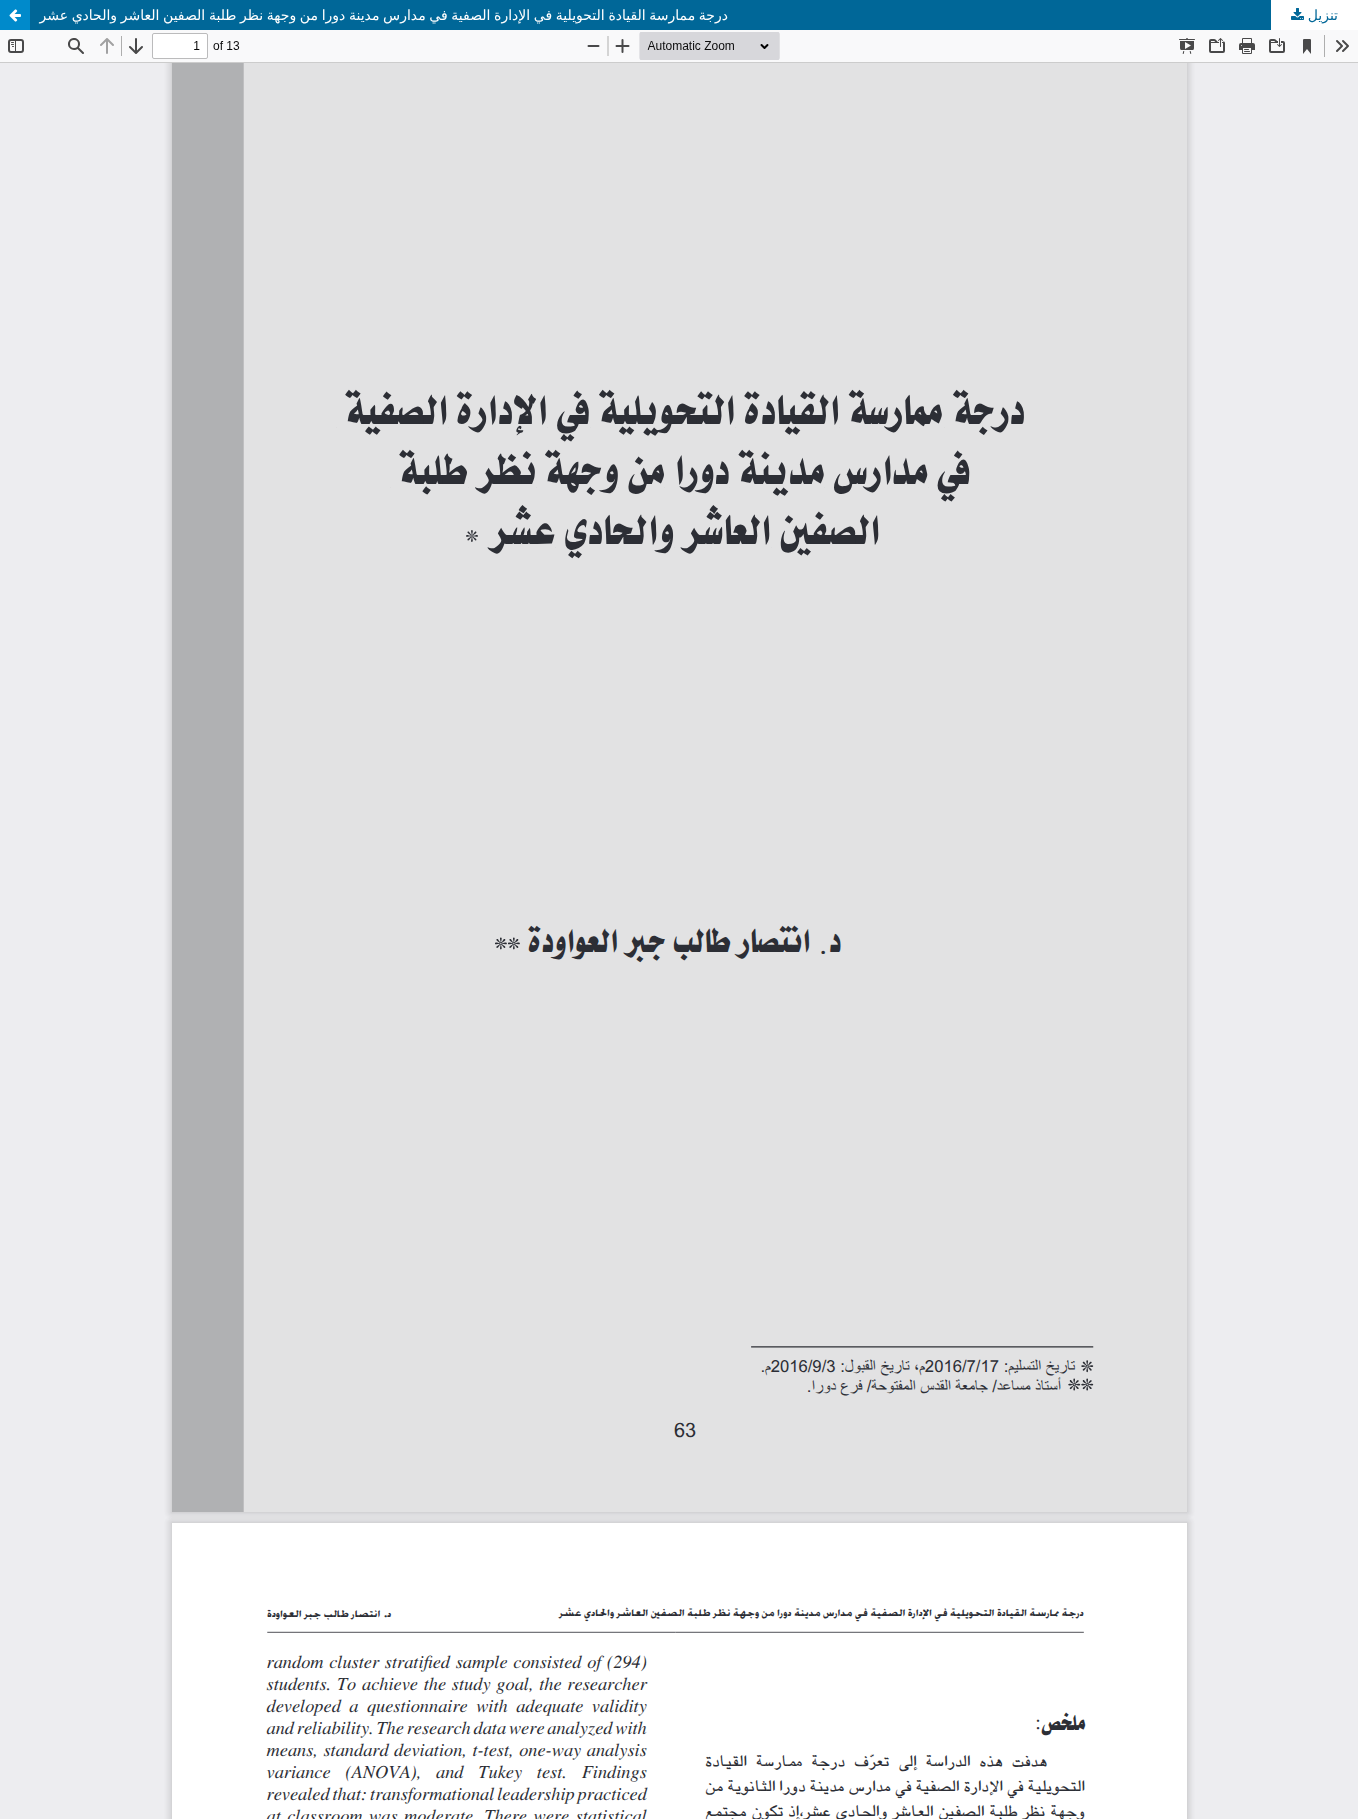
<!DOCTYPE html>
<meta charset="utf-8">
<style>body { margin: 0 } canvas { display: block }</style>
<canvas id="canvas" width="1358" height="1819"></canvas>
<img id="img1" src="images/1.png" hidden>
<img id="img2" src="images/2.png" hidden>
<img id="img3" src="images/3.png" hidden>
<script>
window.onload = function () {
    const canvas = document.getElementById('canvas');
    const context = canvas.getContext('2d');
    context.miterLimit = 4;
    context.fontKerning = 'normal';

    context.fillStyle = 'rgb(255, 255, 255)';
    context.fillRect(0, 0, 1358, 1819);
    context.fillStyle = 'rgb(0, 103, 152)';
    context.fillRect(30, 0, 1241, 30);
    context.drawImage(document.getElementById('img1'), 1291, 8, 13, 12);
    context.fillStyle = 'rgb(0, 138, 203)';
    context.fillRect(0, 0, 30, 30);
    context.drawImage(document.getElementById('img2'), 9, 9, 12, 13);
    context.drawImage(document.getElementById('img3'), 0, 30, 1358, 1789);
    context.direction = 'rtl';
    context.font = '14px DejaVu Sans';
    context.fillStyle = 'rgb(0, 103, 152)';
    context.fillText('تنزيل', 1338, 20);
    context.wordSpacing = '-0.8px';
    context.fillStyle = 'rgb(255, 255, 255)';
    context.fillText('درجة ممارسة القيادة التحويلية في الإدارة الصفية في مدارس مدينة دورا من وجهة نظر طلبة الصفين العاشر والحادي عشر', 728, 20);
};
</script>
